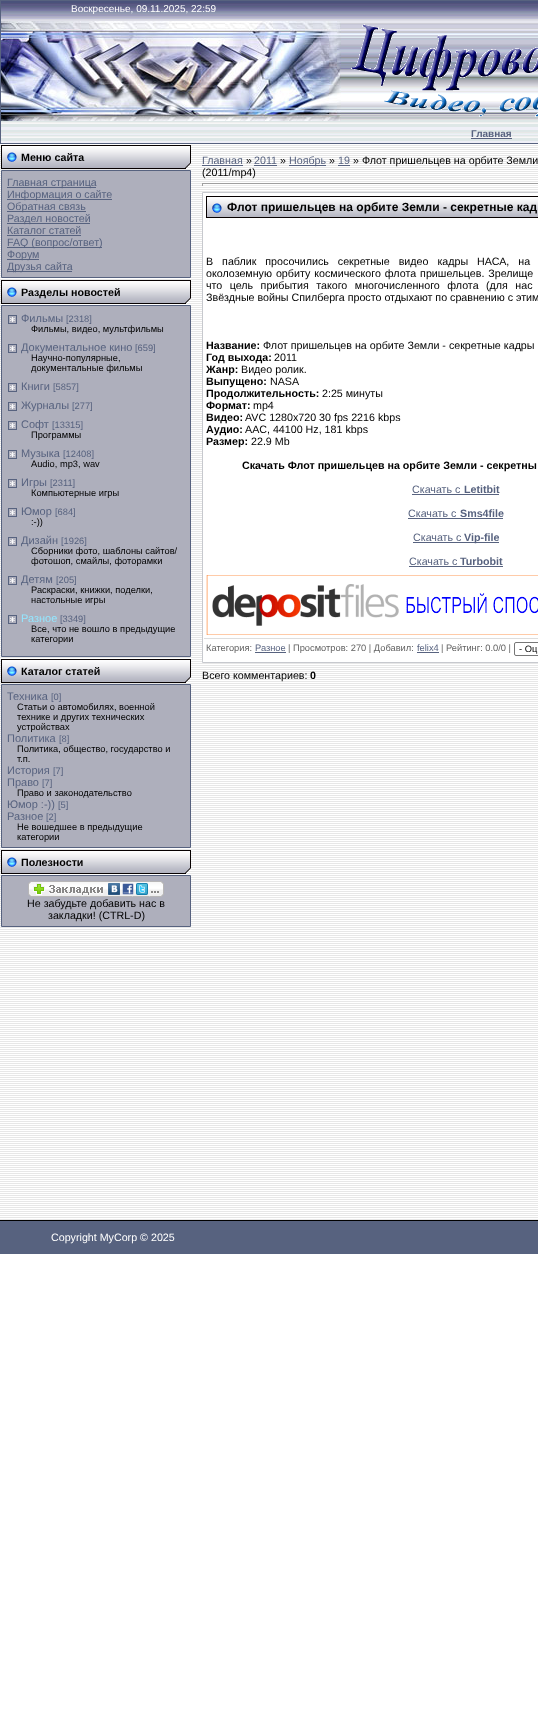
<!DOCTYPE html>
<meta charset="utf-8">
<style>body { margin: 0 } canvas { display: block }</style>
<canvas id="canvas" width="538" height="1732"></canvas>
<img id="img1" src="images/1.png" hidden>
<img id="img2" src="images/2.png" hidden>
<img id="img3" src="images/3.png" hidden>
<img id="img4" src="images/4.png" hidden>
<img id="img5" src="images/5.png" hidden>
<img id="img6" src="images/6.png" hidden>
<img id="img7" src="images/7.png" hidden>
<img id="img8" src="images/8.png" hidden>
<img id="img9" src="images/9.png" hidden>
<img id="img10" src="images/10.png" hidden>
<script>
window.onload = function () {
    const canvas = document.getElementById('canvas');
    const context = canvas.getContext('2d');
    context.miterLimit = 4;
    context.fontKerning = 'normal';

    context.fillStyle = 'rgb(255, 255, 255)';
    context.fillRect(0, 0, 538, 1732);
    context.drawImage(document.getElementById('img1'), 1, 1, 537, 142);
    context.strokeStyle = 'rgb(87, 98, 127)';
    context.strokeRect(0.5, 0.5, 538, 143);
    context.drawImage(document.getElementById('img2'), 1, 21, 340, 100);
    context.drawImage(document.getElementById('img3'), 351, 24, 187, 93);
    context.fillStyle = 'rgb(87, 98, 127)';
    context.fillRect(471, 138, 41, 1);
    context.drawImage(document.getElementById('img4'), 0, 145, 538, 1075);
    context.drawImage(document.getElementById('img5'), 1, 145, 190, 24);
    context.fillStyle = 'rgb(174, 175, 188)';
    context.beginPath();
    context.rect(1.5, 170.5, 189, 107);
    context.fill();
    context.stroke();
    context.fillStyle = 'rgb(87, 98, 127)';
    context.fillRect(7, 187, 89, 1);
    context.fillRect(7, 199, 105, 1);
    context.fillRect(7, 211, 79, 1);
    context.fillRect(7, 223, 83, 1);
    context.fillRect(7, 235, 74, 1);
    context.fillRect(7, 247, 95, 1);
    context.fillRect(7, 259, 32, 1);
    context.fillRect(7, 271, 65, 1);
    context.drawImage(document.getElementById('img6'), 1, 280, 190, 24);
    context.fillStyle = 'rgb(174, 175, 188)';
    context.beginPath();
    context.rect(1.5, 305.5, 189, 351);
    context.fill();
    context.stroke();
    context.drawImage(document.getElementById('img7'), 8, 315, 9, 9);
    context.drawImage(document.getElementById('img7'), 8, 344, 9, 9);
    context.drawImage(document.getElementById('img7'), 8, 383, 9, 9);
    context.drawImage(document.getElementById('img7'), 8, 402, 9, 9);
    context.drawImage(document.getElementById('img7'), 8, 421, 9, 9);
    context.drawImage(document.getElementById('img7'), 8, 450, 9, 9);
    context.drawImage(document.getElementById('img7'), 8, 479, 9, 9);
    context.drawImage(document.getElementById('img7'), 8, 508, 9, 9);
    context.drawImage(document.getElementById('img7'), 8, 537, 9, 9);
    context.drawImage(document.getElementById('img7'), 8, 576, 9, 9);
    context.drawImage(document.getElementById('img7'), 8, 615, 9, 9);
    context.drawImage(document.getElementById('img5'), 1, 659, 190, 24);
    context.beginPath();
    context.rect(1.5, 684.5, 189, 163);
    context.fill();
    context.stroke();
    context.drawImage(document.getElementById('img6'), 1, 850, 190, 24);
    context.beginPath();
    context.rect(1.5, 875.5, 189, 51);
    context.fill();
    context.stroke();
    context.drawImage(document.getElementById('img8'), 28, 881, 136, 16);
    context.fillStyle = 'rgb(87, 98, 127)';
    context.fillRect(202, 165, 41, 1);
    context.fillRect(254, 165, 23, 1);
    context.fillRect(289, 165, 37, 1);
    context.fillRect(338, 165, 12, 1);
    context.fillStyle = 'rgb(159, 159, 159)';
    context.fillRect(202, 183, 336, 1);
    context.fillStyle = 'rgb(238, 238, 238)';
    context.fillRect(202, 185, 336, 1);
    context.fillStyle = 'rgb(159, 159, 159)';
    context.fillRect(202, 183, 1, 3);
    context.fillStyle = 'rgb(255, 255, 255)';
    context.beginPath();
    context.rect(202.5, 192.5, 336, 470);
    context.fill();
    context.strokeStyle = 'rgb(199, 201, 206)';
    context.stroke();
    context.drawImage(document.getElementById('img9'), 207, 197, 331, 20);
    context.strokeStyle = 'rgb(6, 0, 0)';
    context.strokeRect(206.5, 196.5, 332, 21);
    context.fillStyle = 'rgb(87, 98, 127)';
    context.fillRect(412, 494, 87, 1);
    context.fillRect(408, 518, 95, 1);
    context.fillRect(413, 542, 86, 1);
    context.fillRect(409, 566, 94, 1);
    context.drawImage(document.getElementById('img10'), 206, 575, 332, 60);
    context.fillStyle = 'rgb(221, 221, 221)';
    context.fillRect(204, 638, 334, 1);
    context.fillStyle = 'rgb(87, 98, 127)';
    context.fillRect(255, 652, 31, 1);
    context.fillRect(417, 652, 22, 1);
    context.beginPath();
    context.roundRect(514.5, 642.5, 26, 13, 1.5);
    context.strokeStyle = 'rgb(118, 118, 118)';
    context.stroke();
    context.fillRect(0, 1221, 538, 33);
    context.fillStyle = 'rgb(0, 0, 0)';
    context.fillRect(0, 1220, 538, 1);
    context.font = '10px Liberation Sans';
    context.fillStyle = 'rgb(255, 255, 255)';
    context.fillText('Воскресенье, 09.11.2025, 22:59', 71, 12);
    context.font = 'bold 10px Liberation Sans';
    context.fillStyle = 'rgb(87, 98, 127)';
    context.fillText('Главная', 471, 137);
    context.font = 'bold 10.7px Liberation Sans';
    context.fillStyle = 'rgb(0, 0, 0)';
    context.fillText('Меню сайта', 21, 161);
    context.font = '10.7px Liberation Sans';
    context.fillStyle = 'rgb(87, 98, 127)';
    context.fillText('Главная страница', 7, 186);
    context.fillText('Информация о сайте', 7, 198);
    context.fillText('Обратная связь', 7, 210);
    context.fillText('Раздел новостей', 7, 222);
    context.fillText('Каталог статей', 7, 234);
    context.fillText('FAQ (вопрос/ответ)', 7, 246);
    context.fillText('Форум', 7, 258);
    context.fillText('Друзья сайта', 7, 270);
    context.font = 'bold 10.7px Liberation Sans';
    context.fillStyle = 'rgb(0, 0, 0)';
    context.fillText('Разделы новостей', 21, 296);
    context.font = '11px Liberation Sans';
    context.fillStyle = 'rgb(87, 98, 127)';
    context.fillText('Фильмы', 21, 322);
    context.font = '9.3px Liberation Sans';
    context.fillText('[2318]', 66, 322);
    context.fillStyle = 'rgb(0, 0, 0)';
    context.fillText('Фильмы, видео, мультфильмы', 31, 332);
    context.font = '11px Liberation Sans';
    context.fillStyle = 'rgb(87, 98, 127)';
    context.fillText('Документальное кино', 21, 351);
    context.font = '9.3px Liberation Sans';
    context.fillText('[659]', 135, 351);
    context.fillStyle = 'rgb(0, 0, 0)';
    context.fillText('Научно-популярные,', 31, 361);
    context.fillText('документальные фильмы', 31, 371);
    context.font = '11px Liberation Sans';
    context.fillStyle = 'rgb(87, 98, 127)';
    context.fillText('Книги', 21, 390);
    context.font = '9.3px Liberation Sans';
    context.fillText('[5857]', 53, 390);
    context.font = '11px Liberation Sans';
    context.fillText('Журналы', 21, 409);
    context.font = '9.3px Liberation Sans';
    context.fillText('[277]', 72, 409);
    context.font = '11px Liberation Sans';
    context.fillText('Софт', 21, 428);
    context.font = '9.3px Liberation Sans';
    context.fillText('[13315]', 52, 428);
    context.fillStyle = 'rgb(0, 0, 0)';
    context.fillText('Программы', 31, 438);
    context.font = '11px Liberation Sans';
    context.fillStyle = 'rgb(87, 98, 127)';
    context.fillText('Музыка', 21, 457);
    context.font = '9.3px Liberation Sans';
    context.fillText('[12408]', 63, 457);
    context.fillStyle = 'rgb(0, 0, 0)';
    context.fillText('Audio, mp3, wav', 31, 467);
    context.font = '11px Liberation Sans';
    context.fillStyle = 'rgb(87, 98, 127)';
    context.fillText('Игры', 21, 486);
    context.font = '9.3px Liberation Sans';
    context.fillText('[2311]', 50, 486);
    context.fillStyle = 'rgb(0, 0, 0)';
    context.fillText('Компьютерные игры', 31, 496);
    context.font = '11px Liberation Sans';
    context.fillStyle = 'rgb(87, 98, 127)';
    context.fillText('Юмор', 21, 515);
    context.font = '9.3px Liberation Sans';
    context.fillText('[684]', 55, 515);
    context.fillStyle = 'rgb(0, 0, 0)';
    context.fillText(':-))', 31, 525);
    context.font = '11px Liberation Sans';
    context.fillStyle = 'rgb(87, 98, 127)';
    context.fillText('Дизайн', 21, 544);
    context.font = '9.3px Liberation Sans';
    context.fillText('[1926]', 61, 544);
    context.fillStyle = 'rgb(0, 0, 0)';
    context.fillText('Сборники фото, шаблоны сайтов/', 31, 554);
    context.fillText('фотошоп, смайлы, фоторамки', 31, 564);
    context.font = '11px Liberation Sans';
    context.fillStyle = 'rgb(87, 98, 127)';
    context.fillText('Детям', 21, 583);
    context.font = '9.3px Liberation Sans';
    context.fillText('[205]', 56, 583);
    context.fillStyle = 'rgb(0, 0, 0)';
    context.fillText('Раскраски, книжки, поделки,', 31, 593);
    context.fillText('настольные игры', 31, 603);
    context.font = '11px Liberation Sans';
    context.fillStyle = 'rgb(148, 231, 255)';
    context.fillText('Разное', 21, 622);
    context.font = '9.3px Liberation Sans';
    context.fillStyle = 'rgb(87, 98, 127)';
    context.fillText('[3349]', 60, 622);
    context.fillStyle = 'rgb(0, 0, 0)';
    context.fillText('Все, что не вошло в предыдущие', 31, 632);
    context.fillText('категории', 31, 642);
    context.font = 'bold 10.7px Liberation Sans';
    context.fillText('Каталог статей', 21, 675);
    context.font = '11px Liberation Sans';
    context.fillStyle = 'rgb(87, 98, 127)';
    context.fillText('Техника', 7, 700);
    context.font = '9.3px Liberation Sans';
    context.fillText('[0]', 51, 700);
    context.fillStyle = 'rgb(0, 0, 0)';
    context.fillText('Статьи о автомобилях, военной', 17, 710);
    context.fillText('технике и других технических', 17, 720);
    context.fillText('устройствах', 17, 730);
    context.font = '11px Liberation Sans';
    context.fillStyle = 'rgb(87, 98, 127)';
    context.fillText('Политика', 7, 742);
    context.font = '9.3px Liberation Sans';
    context.fillText('[8]', 59, 742);
    context.fillStyle = 'rgb(0, 0, 0)';
    context.fillText('Политика, общество, государство и', 17, 752);
    context.fillText('т.п.', 17, 762);
    context.font = '11px Liberation Sans';
    context.fillStyle = 'rgb(87, 98, 127)';
    context.fillText('История', 7, 774);
    context.font = '9.3px Liberation Sans';
    context.fillText('[7]', 53, 774);
    context.font = '11px Liberation Sans';
    context.fillText('Право', 7, 786);
    context.font = '9.3px Liberation Sans';
    context.fillText('[7]', 42, 786);
    context.fillStyle = 'rgb(0, 0, 0)';
    context.fillText('Право и законодательство', 17, 796);
    context.font = '11px Liberation Sans';
    context.fillStyle = 'rgb(87, 98, 127)';
    context.fillText('Юмор :-))', 7, 808);
    context.font = '9.3px Liberation Sans';
    context.fillText('[5]', 58, 808);
    context.font = '11px Liberation Sans';
    context.fillText('Разное', 7, 820);
    context.font = '9.3px Liberation Sans';
    context.fillText('[2]', 46, 820);
    context.fillStyle = 'rgb(0, 0, 0)';
    context.fillText('Не вошедшее в предыдущие', 17, 830);
    context.fillText('категории', 17, 840);
    context.font = 'bold 10.7px Liberation Sans';
    context.fillText('Полезности', 21, 866);
    context.font = '10.7px Liberation Sans';
    context.fillText('Не забудьте добавить нас в', 27, 907);
    context.fillText('закладки! (CTRL-D)', 48, 919);
    context.fillStyle = 'rgb(87, 98, 127)';
    context.fillText('Главная', 202, 164);
    context.fillStyle = 'rgb(0, 0, 0)';
    context.fillText('»', 246, 164);
    context.fillStyle = 'rgb(87, 98, 127)';
    context.fillText('2011', 254, 164);
    context.fillStyle = 'rgb(0, 0, 0)';
    context.fillText('»', 280, 164);
    context.fillStyle = 'rgb(87, 98, 127)';
    context.fillText('Ноябрь', 289, 164);
    context.fillStyle = 'rgb(0, 0, 0)';
    context.fillText('»', 329, 164);
    context.fillStyle = 'rgb(87, 98, 127)';
    context.fillText('19', 338, 164);
    context.fillStyle = 'rgb(0, 0, 0)';
    context.fillText('» Флот пришельцев на орбите Земли', 353, 164);
    context.fillText('(2011/mp4)', 202, 176);
    context.font = 'bold 12px Liberation Sans';
    context.fillText('Флот пришельцев на орбите Земли - секретные кад', 227, 211);
    context.wordSpacing = '6px';
    context.font = '10.7px Liberation Sans';
    context.fillText('В паблик просочились секретные видео кадры НАСА, на', 206, 265);
    context.wordSpacing = '1px';
    context.fillText('околоземную орбиту космического флота пришельцев. Зрелище', 206, 277);
    context.wordSpacing = '4.5px';
    context.fillText('что цель прибытия такого многочисленного флота (для нас', 206, 289);
    context.wordSpacing = '0px';
    context.fillText('Звёздные войны Спилберга просто отдыхают по сравнению с этим', 206, 301);
    context.font = 'bold 10.7px Liberation Sans';
    context.fillText('Название:', 206, 349);
    context.font = '10.7px Liberation Sans';
    context.fillText('Флот пришельцев на орбите Земли - секретные кадры', 263, 349);
    context.font = 'bold 10.7px Liberation Sans';
    context.fillText('Год выхода:', 206, 361);
    context.font = '10.7px Liberation Sans';
    context.fillText('2011', 274, 361);
    context.font = 'bold 10.7px Liberation Sans';
    context.fillText('Жанр:', 206, 373);
    context.font = '10.7px Liberation Sans';
    context.fillText('Видео ролик.', 241, 373);
    context.font = 'bold 10.7px Liberation Sans';
    context.fillText('Выпущено:', 206, 385);
    context.font = '10.7px Liberation Sans';
    context.fillText('NASA', 270, 385);
    context.font = 'bold 10.7px Liberation Sans';
    context.fillText('Продолжительность:', 206, 397);
    context.font = '10.7px Liberation Sans';
    context.fillText('2:25 минуты', 322, 397);
    context.font = 'bold 10.7px Liberation Sans';
    context.fillText('Формат:', 206, 409);
    context.font = '10.7px Liberation Sans';
    context.fillText('mp4', 253, 409);
    context.font = 'bold 10.7px Liberation Sans';
    context.fillText('Видео:', 206, 421);
    context.font = '10.7px Liberation Sans';
    context.fillText('AVC 1280x720 30 fps 2216 kbps', 245, 421);
    context.font = 'bold 10.7px Liberation Sans';
    context.fillText('Аудио:', 206, 433);
    context.font = '10.7px Liberation Sans';
    context.fillText('AAC, 44100 Hz, 181 kbps', 245, 433);
    context.font = 'bold 10.7px Liberation Sans';
    context.fillText('Размер:', 206, 445);
    context.font = '10.7px Liberation Sans';
    context.fillText('22.9 Mb', 251, 445);
    context.font = 'bold 10.7px Liberation Sans';
    context.fillText('Скачать Флот пришельцев на орбите Земли - секретны', 242, 469);
    context.font = '10.7px Liberation Sans';
    context.fillStyle = 'rgb(87, 98, 127)';
    context.fillText('Скачать с', 412, 493);
    context.font = 'bold 10.7px Liberation Sans';
    context.fillText('Letitbit', 464, 493);
    context.font = '10.7px Liberation Sans';
    context.fillText('Скачать с', 408, 517);
    context.font = 'bold 10.7px Liberation Sans';
    context.fillText('Sms4file', 460, 517);
    context.font = '10.7px Liberation Sans';
    context.fillText('Скачать с', 413, 541);
    context.font = 'bold 10.7px Liberation Sans';
    context.fillText('Vip-file', 464, 541);
    context.font = '10.7px Liberation Sans';
    context.fillText('Скачать с', 409, 565);
    context.font = 'bold 10.7px Liberation Sans';
    context.fillText('Turbobit', 460, 565);
    context.font = '9.3px Liberation Sans';
    context.fillStyle = 'rgb(99, 99, 99)';
    context.fillText('Категория:', 206, 651);
    context.fillStyle = 'rgb(87, 98, 127)';
    context.fillText('Разное', 255, 651);
    context.fillStyle = 'rgb(99, 99, 99)';
    context.fillText('| Просмотров: 270 | Добавил:', 288, 651);
    context.fillStyle = 'rgb(87, 98, 127)';
    context.fillText('felix4', 417, 651);
    context.fillStyle = 'rgb(99, 99, 99)';
    context.fillText('| Рейтинг: 0.0/0 |', 441, 651);
    context.fillStyle = 'rgb(0, 0, 0)';
    context.fillText('- Оц', 519, 652);
    context.font = '10.7px Liberation Sans';
    context.fillText('Всего комментариев:', 202, 679);
    context.font = 'bold 10.7px Liberation Sans';
    context.fillText('0', 310, 679);
    context.font = '10.7px Liberation Sans';
    context.fillStyle = 'rgb(255, 255, 255)';
    context.fillText('Copyright MyCorp © 2025', 51, 1241);
};
</script>
